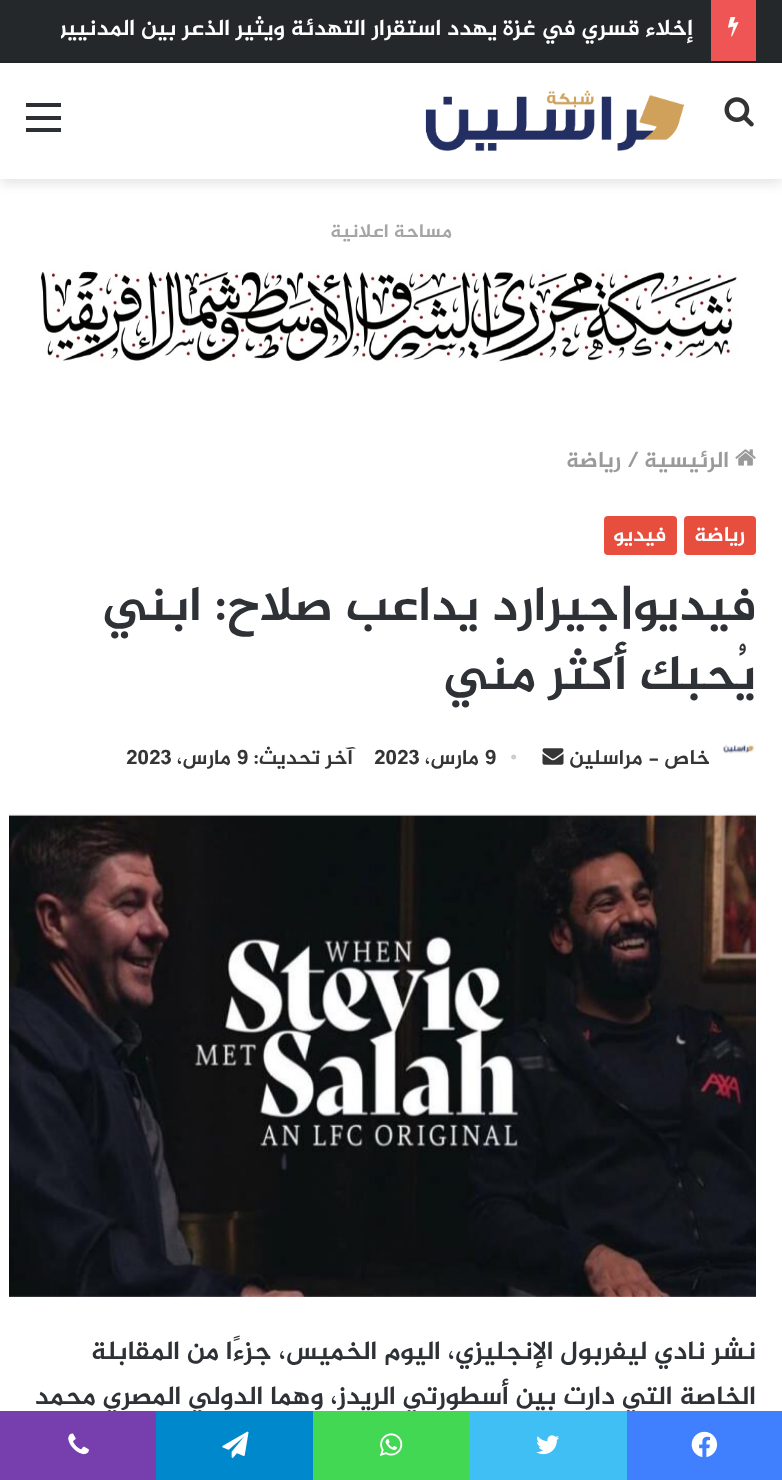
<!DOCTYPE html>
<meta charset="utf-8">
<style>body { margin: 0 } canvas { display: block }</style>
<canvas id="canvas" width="782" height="1480"></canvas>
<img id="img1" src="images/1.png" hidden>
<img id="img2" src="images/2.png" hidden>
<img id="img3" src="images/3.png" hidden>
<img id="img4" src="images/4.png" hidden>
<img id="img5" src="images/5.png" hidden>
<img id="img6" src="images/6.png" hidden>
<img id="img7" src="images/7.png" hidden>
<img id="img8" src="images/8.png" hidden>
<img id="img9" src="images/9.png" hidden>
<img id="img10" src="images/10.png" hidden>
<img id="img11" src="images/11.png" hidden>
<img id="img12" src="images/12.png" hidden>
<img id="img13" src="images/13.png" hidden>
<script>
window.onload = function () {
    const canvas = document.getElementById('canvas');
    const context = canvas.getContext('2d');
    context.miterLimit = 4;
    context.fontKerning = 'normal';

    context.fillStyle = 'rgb(255, 255, 255)';
    context.fillRect(0, 0, 782, 1480);
    context.fillStyle = 'rgba(0, 0, 0, 0.1)';
    context.filter = 'blur(6px)';
    context.beginPath();
    context.rect(0, 68, 782, 116);
    context.fill();
    context.filter = 'none';
    context.fillStyle = 'rgb(37, 40, 43)';
    context.fillRect(0, 0, 782, 61);
    context.fillStyle = 'rgb(33, 36, 39)';
    context.fillRect(0, 61, 782, 2);
    context.fillStyle = 'rgb(240, 85, 85)';
    context.fillRect(711, 0, 45, 61);
    context.drawImage(document.getElementById('img1'), 728, 17, 11, 20);
    context.fillStyle = 'rgb(255, 255, 255)';
    context.fillRect(0, 63, 782, 116);
    context.drawImage(document.getElementById('img2'), 724, 97, 30, 30);
    context.drawImage(document.getElementById('img3'), 425, 90, 259, 61);
    context.fillStyle = 'rgb(44, 47, 52)';
    context.fillRect(26, 116, 35, 4);
    context.fillRect(26, 103, 35, 4);
    context.fillRect(26, 128, 35, 4);
    context.drawImage(document.getElementById('img4'), 41, 267, 697, 97);
    context.drawImage(document.getElementById('img5'), 735, 449, 21, 17);
    context.fillStyle = 'rgb(231, 78, 62)';
    context.beginPath();
    context.roundRect(684, 516, 72, 39, 4);
    context.fill();
    context.beginPath();
    context.roundRect(604, 516, 73, 39, 4);
    context.fill();
    context.drawImage(document.getElementById('img6'), 722, 743, 33, 11);
    context.drawImage(document.getElementById('img7'), 542, 748, 22, 17);
    context.drawImage(document.getElementById('img8'), 9, 814, 747, 483);
    context.save();
    context.beginPath();
    context.rect(61, 0, 632, 61);
    context.clip();
    context.direction = 'rtl';
    context.font = 'bold 22.75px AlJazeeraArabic';
    context.fillStyle = 'rgb(255, 255, 255)';
    context.fillText('إخلاء قسري في غزة يهدد استقرار التهدئة ويثير الذعر بين المدنيين', 693, 35);
    context.restore();
    context.direction = 'rtl';
    context.font = 'bold 19.25px AlJazeeraArabic';
    context.fillStyle = 'rgb(165, 165, 165)';
    context.fillText('مساحة اعلانية', 452, 237);
    context.font = 'bold 22.75px AlJazeeraArabic';
    context.fillStyle = 'rgb(154, 154, 154)';
    context.fillText('الرئيسية', 729, 467);
    context.direction = 'ltr';
    context.fillText('/', 627, 467);
    context.direction = 'rtl';
    context.fillText('رياضة', 621, 467);
    context.font = 'bold 21px AlJazeeraArabic';
    context.fillStyle = 'rgb(255, 255, 255)';
    context.fillText('رياضة', 745, 541);
    context.fillText('فيديو', 666, 541);
    context.font = 'bold 49px AlJazeeraArabic';
    context.fillStyle = 'rgb(46, 49, 54)';
    context.fillText('فيديو|جيرارد يداعب صلاح: ابني', 756, 620);
    context.fillText('يُحبك أكثر مني', 756, 689);
    context.font = 'bold 21px AlJazeeraArabic';
    context.fillStyle = 'rgb(53, 53, 53)';
    context.fillText('خاص - مراسلين', 710, 764);
    context.direction = 'ltr';
    context.font = '21px Liberation Serif';
    context.fillStyle = 'rgb(205, 205, 205)';
    context.fillText('•', 510, 764);
    context.font = 'bold 21px AlJazeeraArabic';
    context.fillStyle = 'rgb(53, 53, 53)';
    context.fillText('9', 485, 764);
    context.direction = 'rtl';
    context.fillText('مارس،', 479, 764);
    context.direction = 'ltr';
    context.fillText('2023', 374, 764);
    context.direction = 'rtl';
    context.fillText('آخر تحديث:', 353, 764);
    context.direction = 'ltr';
    context.fillText('9', 237, 764);
    context.direction = 'rtl';
    context.fillText('مارس،', 231, 764);
    context.direction = 'ltr';
    context.fillText('2023', 126, 764);
    context.direction = 'rtl';
    context.font = 'bold 26.25px AlJazeeraArabic';
    context.fillStyle = 'rgb(46, 49, 54)';
    context.fillText('نشر نادي ليفربول الإنجليزي، اليوم الخميس، جزءًا من المقابلة', 756, 1359);
    context.fillText('الخاصة التي دارت بين أسطورتي الريدز، وهما الدولي المصري محمد', 756, 1404);
    context.fillStyle = 'rgb(64, 128, 255)';
    context.fillRect(627, 1411, 155, 69);
    context.drawImage(document.getElementById('img9'), 691, 1431, 27, 26);
    context.fillStyle = 'rgb(64, 191, 245)';
    context.fillRect(469, 1411, 158, 69);
    context.drawImage(document.getElementById('img10'), 536, 1435, 24, 20);
    context.fillStyle = 'rgb(67, 216, 84)';
    context.fillRect(313, 1411, 156, 69);
    context.drawImage(document.getElementById('img11'), 379, 1433, 24, 23);
    context.fillStyle = 'rgb(0, 136, 204)';
    context.fillRect(156, 1411, 157, 69);
    context.drawImage(document.getElementById('img12'), 222, 1431, 27, 27);
    context.fillStyle = 'rgb(119, 62, 173)';
    context.fillRect(0, 1411, 156, 69);
    context.drawImage(document.getElementById('img13'), 68, 1433, 21, 22);
};
</script>
